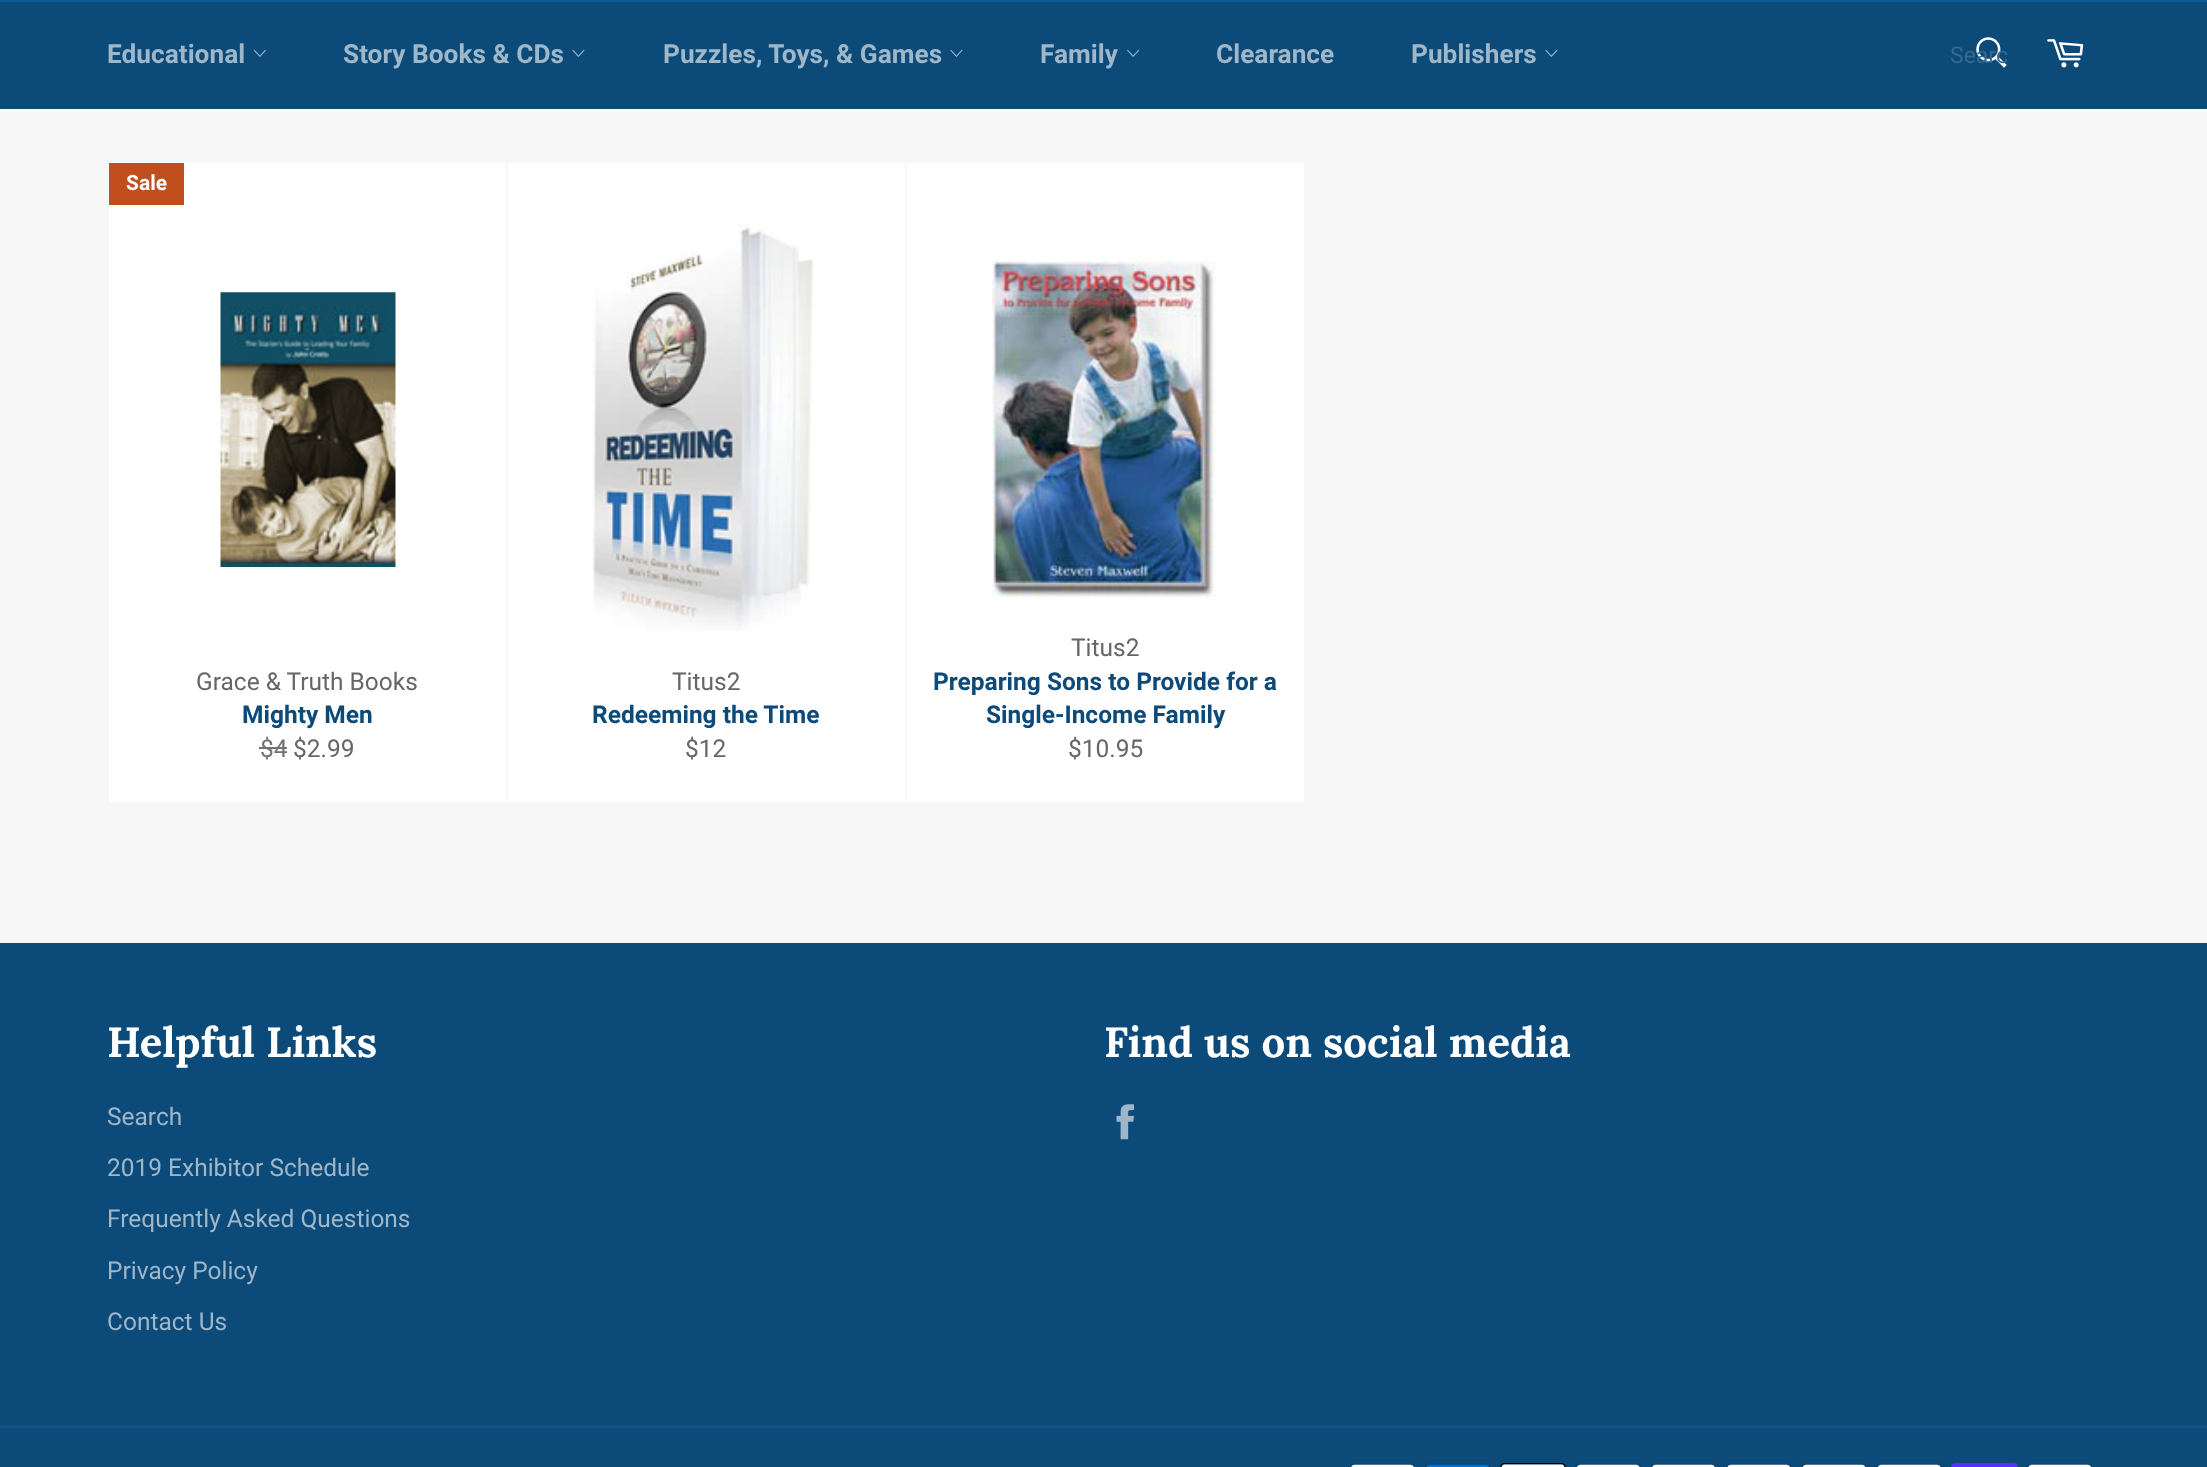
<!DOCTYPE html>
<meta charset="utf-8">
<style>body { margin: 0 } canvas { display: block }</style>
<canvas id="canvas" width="2207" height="1467"></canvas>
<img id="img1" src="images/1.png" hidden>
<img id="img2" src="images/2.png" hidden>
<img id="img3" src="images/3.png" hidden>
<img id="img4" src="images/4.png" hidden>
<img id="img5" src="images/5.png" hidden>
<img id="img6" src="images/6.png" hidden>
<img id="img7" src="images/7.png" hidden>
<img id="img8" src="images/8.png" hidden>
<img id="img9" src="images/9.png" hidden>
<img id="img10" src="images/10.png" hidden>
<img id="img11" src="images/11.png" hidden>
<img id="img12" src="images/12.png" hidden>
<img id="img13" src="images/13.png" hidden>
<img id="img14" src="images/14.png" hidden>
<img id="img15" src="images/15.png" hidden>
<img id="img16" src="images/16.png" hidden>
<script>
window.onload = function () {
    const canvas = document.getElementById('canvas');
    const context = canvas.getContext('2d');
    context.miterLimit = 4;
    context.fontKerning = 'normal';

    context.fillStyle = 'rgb(247, 247, 247)';
    context.fillRect(0, 0, 2207, 1467);
    context.fillStyle = 'rgb(12, 74, 121)';
    context.fillRect(0, 2, 2207, 107);
    context.fillStyle = 'rgb(14, 88, 144)';
    context.fillRect(0, 0, 2207, 2);
    context.drawImage(document.getElementById('img1'), 253, 49, 13, 8);
    context.drawImage(document.getElementById('img2'), 572, 49, 13, 8);
    context.drawImage(document.getElementById('img2'), 950, 49, 13, 8);
    context.drawImage(document.getElementById('img3'), 1127, 49, 13, 8);
    context.drawImage(document.getElementById('img2'), 1545, 49, 13, 8);
    context.drawImage(document.getElementById('img4'), 1976, 37, 31, 31);
    context.drawImage(document.getElementById('img5'), 2047, 39, 37, 29);
    context.fillStyle = 'rgb(255, 255, 255)';
    context.fillRect(109, 163, 397, 639);
    context.fillStyle = 'rgb(192, 79, 29)';
    context.fillRect(109, 163, 75, 42);
    context.drawImage(document.getElementById('img6'), 220, 292, 176, 275);
    context.fillStyle = 'rgb(115, 115, 115)';
    context.fillRect(259, 747, 28, 2);
    context.fillStyle = 'rgb(255, 255, 255)';
    context.fillRect(508, 163, 397, 639);
    context.drawImage(document.getElementById('img7'), 592, 224, 222, 407);
    context.fillRect(907, 163, 397, 639);
    context.drawImage(document.getElementById('img8'), 992, 260, 225, 338);
    context.fillStyle = 'rgb(12, 74, 121)';
    context.fillRect(0, 943, 2207, 524);
    context.drawImage(document.getElementById('img9'), 1116, 1104, 18, 36);
    context.fillStyle = 'rgb(14, 88, 144)';
    context.fillRect(0, 1426, 2207, 2);
    context.drawImage(document.getElementById('img10'), 1350, 1463, 65, 4);
    context.drawImage(document.getElementById('img11'), 1425, 1463, 66, 4);
    context.drawImage(document.getElementById('img12'), 1500, 1463, 66, 4);
    context.drawImage(document.getElementById('img13'), 1575, 1463, 66, 4);
    context.drawImage(document.getElementById('img10'), 1651, 1463, 65, 4);
    context.drawImage(document.getElementById('img14'), 1726, 1463, 66, 4);
    context.drawImage(document.getElementById('img15'), 1801, 1463, 66, 4);
    context.drawImage(document.getElementById('img13'), 1876, 1463, 66, 4);
    context.drawImage(document.getElementById('img16'), 1951, 1463, 67, 4);
    context.drawImage(document.getElementById('img14'), 2027, 1463, 66, 4);
    context.font = 'bold 26.25px Roboto';
    context.fillStyle = 'rgb(158, 183, 201)';
    context.fillText('Educational', 107, 63);
    context.fillText('Story Books & CDs', 343, 63);
    context.fillText('Puzzles, Toys, & Games', 663, 63);
    context.fillText('Family', 1040, 63);
    context.fillText('Clearance', 1216, 63);
    context.fillText('Publishers', 1411, 63);
    context.font = '23px Roboto';
    context.fillStyle = 'rgb(54, 105, 144)';
    context.fillText('Searc', 1950, 63);
    context.font = 'bold 21px Roboto';
    context.fillStyle = 'rgb(255, 255, 255)';
    context.fillText('Sale', 126, 190);
    context.font = '24.5px Roboto';
    context.fillStyle = 'rgb(102, 102, 102)';
    context.fillText('Grace & Truth Books', 196, 690);
    context.font = 'bold 24.5px Roboto';
    context.fillStyle = 'rgb(12, 74, 121)';
    context.fillText('Mighty Men', 242, 723);
    context.font = '24.5px Roboto';
    context.fillStyle = 'rgb(115, 115, 115)';
    context.fillText('$4', 260, 757);
    context.fillStyle = 'rgb(102, 102, 102)';
    context.fillText('$2.99', 293, 757);
    context.fillText('Titus2', 672, 690);
    context.font = 'bold 24.5px Roboto';
    context.fillStyle = 'rgb(12, 74, 121)';
    context.fillText('Redeeming the Time', 592, 723);
    context.font = '24.5px Roboto';
    context.fillStyle = 'rgb(102, 102, 102)';
    context.fillText('$12', 685, 757);
    context.fillText('Titus2', 1071, 656);
    context.font = 'bold 24.5px Roboto';
    context.fillStyle = 'rgb(12, 74, 121)';
    context.fillText('Preparing Sons to Provide for a', 933, 690);
    context.fillText('Single-Income Family', 986, 723);
    context.font = '24.5px Roboto';
    context.fillStyle = 'rgb(102, 102, 102)';
    context.fillText('$10.95', 1068, 757);
    context.font = 'bold 42px Lora';
    context.fillStyle = 'rgb(255, 255, 255)';
    context.fillText('Helpful Links', 107, 1057);
    context.font = '24.5px Roboto';
    context.fillStyle = 'rgb(158, 183, 201)';
    context.fillText('Search', 107, 1125);
    context.fillText('2019 Exhibitor Schedule', 107, 1176);
    context.fillText('Frequently Asked Questions', 107, 1227);
    context.fillText('Privacy Policy', 107, 1279);
    context.fillText('Contact Us', 107, 1330);
    context.font = 'bold 42px Lora';
    context.fillStyle = 'rgb(255, 255, 255)';
    context.fillText('Find us on social media', 1104, 1057);
};
</script>
